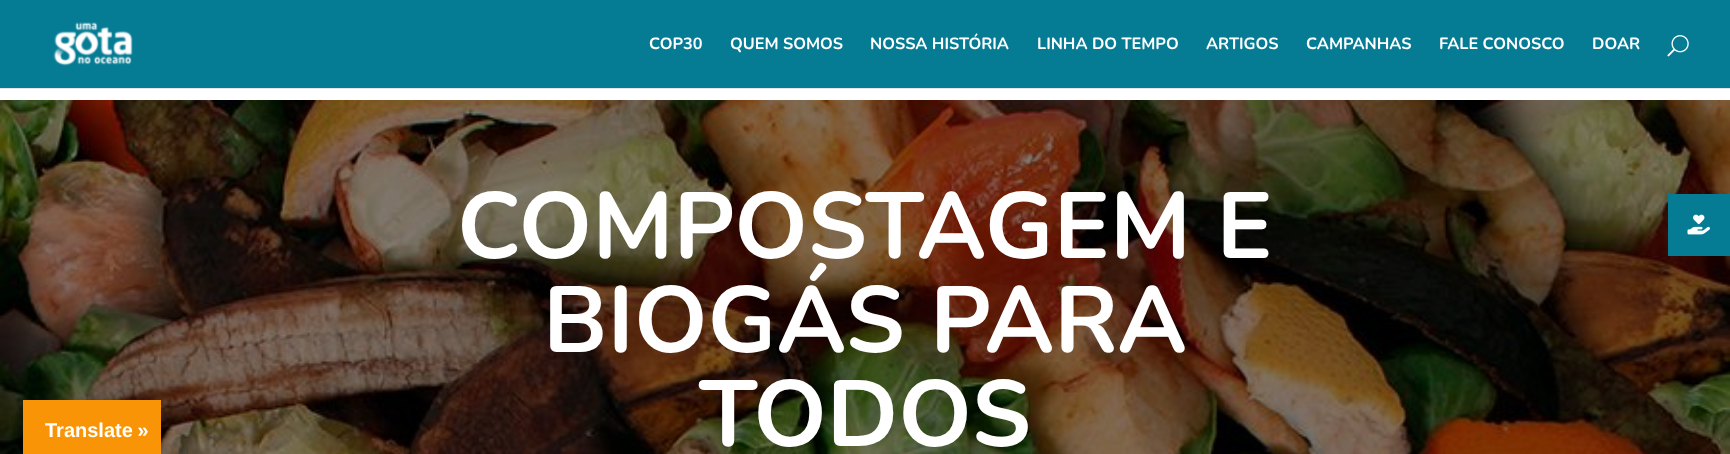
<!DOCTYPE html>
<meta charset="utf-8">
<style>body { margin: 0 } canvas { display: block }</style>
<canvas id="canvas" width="1730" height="454"></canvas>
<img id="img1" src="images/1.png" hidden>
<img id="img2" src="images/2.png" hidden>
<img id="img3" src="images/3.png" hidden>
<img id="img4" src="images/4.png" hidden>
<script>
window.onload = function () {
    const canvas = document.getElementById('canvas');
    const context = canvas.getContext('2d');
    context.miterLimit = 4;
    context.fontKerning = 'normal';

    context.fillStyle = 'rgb(255, 255, 255)';
    context.fillRect(0, 0, 1730, 454);
    context.fillStyle = 'rgb(230, 230, 230)';
    context.fillRect(0, 88, 1730, 1);
    context.fillStyle = 'rgb(5, 124, 148)';
    context.fillRect(0, 0, 1730, 88);
    context.drawImage(document.getElementById('img1'), 53, 22, 80, 44);
    context.drawImage(document.getElementById('img2'), 1667, 35, 22, 22);
    context.drawImage(document.getElementById('img3'), 0, 100, 1730, 354);
    context.fillRect(1668, 194, 62, 62);
    context.drawImage(document.getElementById('img4'), 1687, 214, 23, 21);
    context.fillStyle = 'rgba(0, 0, 0, 0.3)';
    context.filter = 'blur(5.5px)';
    context.beginPath();
    context.rect(23, 400, 138, 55);
    context.fill();
    context.filter = 'none';
    context.fillStyle = 'rgb(248, 148, 6)';
    context.fillRect(23, 400, 138, 54);
    context.font = 'bold 16.25px Nunito';
    context.fillStyle = 'rgb(255, 255, 255)';
    context.fillText('COP30', 649, 49);
    context.fillText('QUEM SOMOS', 730, 49);
    context.fillText('NOSSA HISTÓRIA', 870, 49);
    context.fillText('LINHA DO TEMPO', 1037, 49);
    context.fillText('ARTIGOS', 1206, 49);
    context.fillText('CAMPANHAS', 1306, 49);
    context.fillText('FALE CONOSCO', 1439, 49);
    context.fillText('DOAR', 1592, 49);
    context.font = 'bold 93.75px Nunito';
    context.fillText('COMPOSTAGEM E', 457, 258);
    context.fillText('BIOGÁS PARA', 543, 352);
    context.fillText('TODOS', 699, 446);
    context.wordSpacing = '-1px';
    context.font = 'bold 20px Liberation Sans';
    context.fillText('Translate »', 45, 437);
};
</script>
